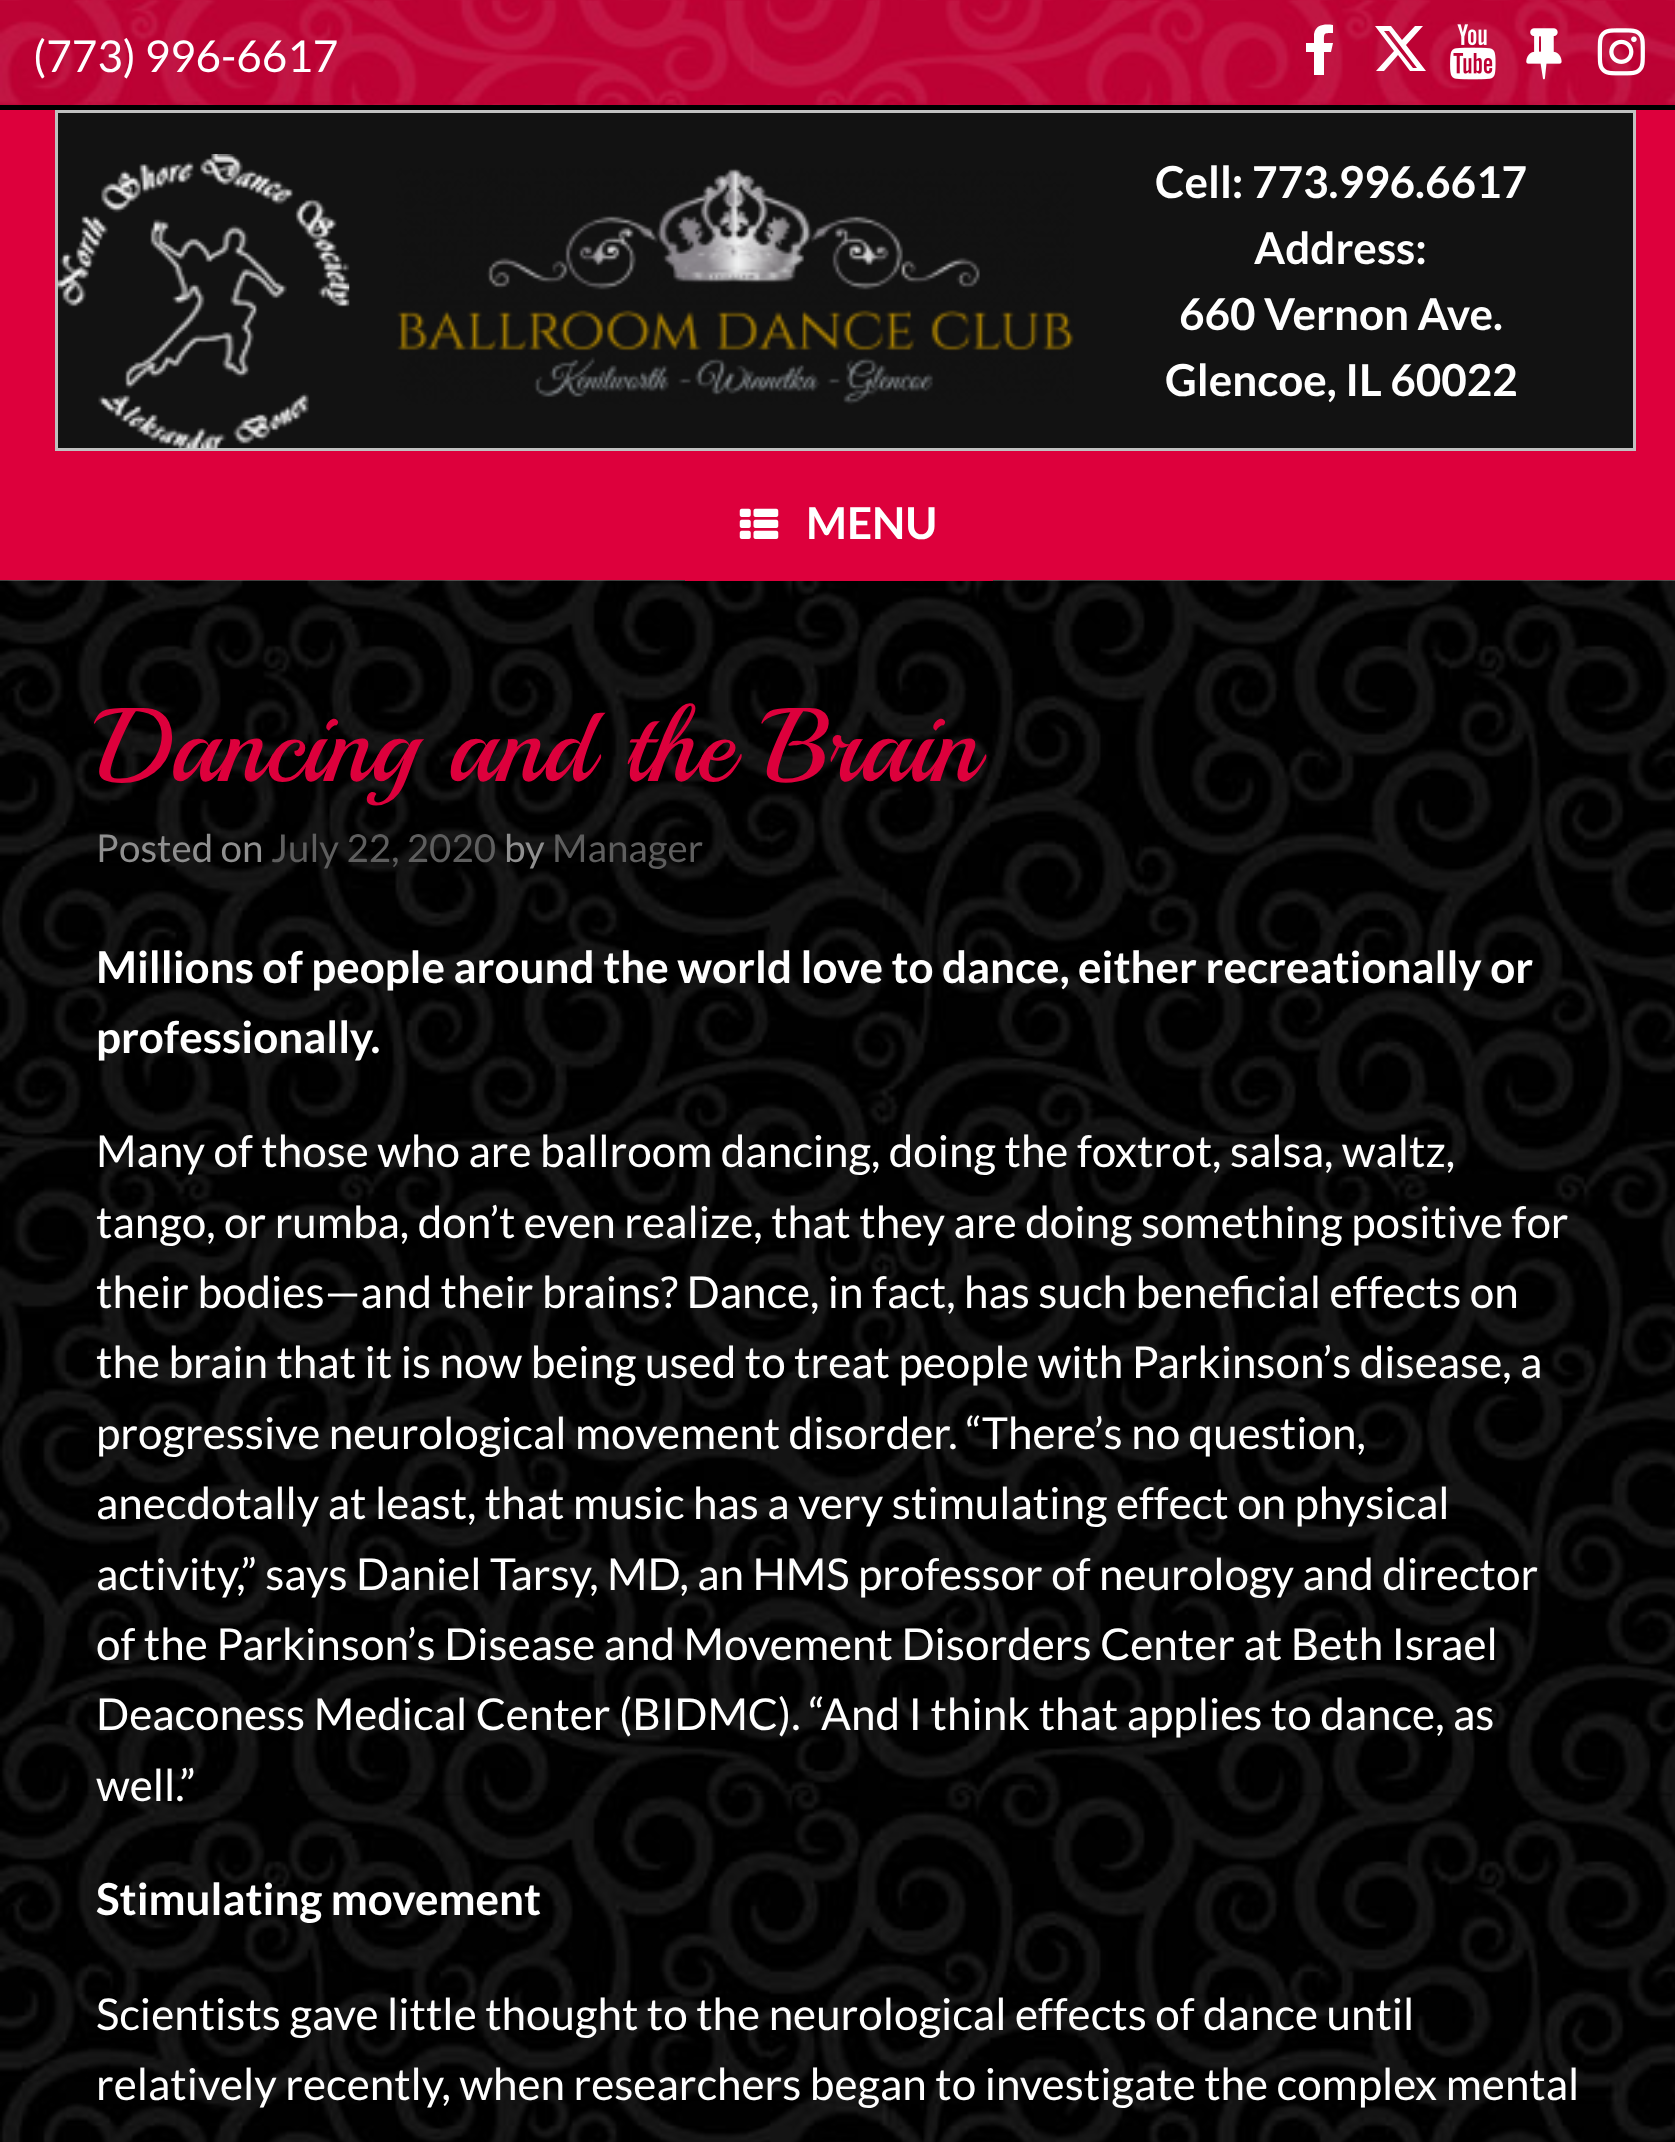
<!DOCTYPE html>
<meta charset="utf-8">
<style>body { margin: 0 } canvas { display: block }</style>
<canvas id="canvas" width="1675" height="2142"></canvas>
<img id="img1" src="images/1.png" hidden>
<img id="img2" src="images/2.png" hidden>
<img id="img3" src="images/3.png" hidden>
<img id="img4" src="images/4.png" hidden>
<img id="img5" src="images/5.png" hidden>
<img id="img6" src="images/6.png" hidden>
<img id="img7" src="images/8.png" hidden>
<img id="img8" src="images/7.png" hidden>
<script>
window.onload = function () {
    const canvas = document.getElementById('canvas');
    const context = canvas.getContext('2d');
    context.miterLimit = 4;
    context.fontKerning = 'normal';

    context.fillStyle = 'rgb(255, 255, 255)';
    context.fillRect(0, 0, 1675, 2142);
    context.drawImage(document.getElementById('img1'), 0, 0, 1675, 105);
    context.fillStyle = 'rgb(0, 0, 0)';
    context.fillRect(0, 105, 1675, 5);
    context.fillStyle = 'rgb(255, 255, 255)';
    context.beginPath();
    context.moveTo(1333, 25);
    context.bezierCurveTo(1325, 24, 1316, 24, 1314, 34);
    context.lineTo(1314, 43);
    context.lineTo(1306, 43);
    context.lineTo(1306, 52);
    context.lineTo(1314, 52);
    context.lineTo(1314, 75);
    context.lineTo(1324, 75);
    context.lineTo(1324, 52);
    context.lineTo(1331, 52);
    context.lineTo(1333, 43);
    context.lineTo(1324, 43);
    context.bezierCurveTo(1324, 33, 1323, 33, 1333, 33);
    context.closePath();
    context.fill();
    context.beginPath();
    context.moveTo(1415, 26);
    context.lineTo(1402, 40);
    context.lineTo(1391, 26);
    context.lineTo(1375, 26);
    context.lineTo(1394, 51);
    context.lineTo(1376, 71);
    context.lineTo(1384, 71);
    context.lineTo(1398, 55);
    context.lineTo(1410, 71);
    context.lineTo(1426, 71);
    context.lineTo(1406, 45);
    context.lineTo(1423, 26);
    context.closePath();
    context.moveTo(1413, 68);
    context.lineTo(1384, 31);
    context.lineTo(1389, 31);
    context.lineTo(1417, 68);
    context.closePath();
    context.fill();
    context.drawImage(document.getElementById('img2'), 1450, 24, 46, 56);
    context.drawImage(document.getElementById('img3'), 1526, 28, 36, 52);
    context.drawImage(document.getElementById('img4'), 1597, 28, 48, 48);
    context.fillStyle = 'rgb(221, 0, 60)';
    context.fillRect(0, 110, 1675, 470);
    context.fillStyle = 'rgb(18, 18, 18)';
    context.beginPath();
    context.rect(56.5, 111.5, 1578, 338);
    context.fill();
    context.strokeStyle = 'rgb(192, 192, 192)';
    context.lineWidth = 3;
    context.stroke();
    context.drawImage(document.getElementById('img5'), 57, 154, 293, 295);
    context.drawImage(document.getElementById('img6'), 396, 168, 678, 237);
    context.drawImage(document.getElementById('img7'), 0, 580, 1675, 1562);
    context.fillStyle = 'rgb(221, 0, 60)';
    context.fillRect(685, 580, 308, 1);
    context.drawImage(document.getElementById('img8'), 739, 508, 40, 31);
    context.font = '44px Lato';
    context.fillStyle = 'rgb(255, 255, 255)';
    context.fillText('(773) 996-6617', 33, 72);
    context.font = 'bold 44px Lato';
    context.fillText('Cell: 773.996.6617', 1155, 198);
    context.fillText('Address:', 1254, 264);
    context.fillText('660 Vernon Ave.', 1179, 330);
    context.fillText('Glencoe, IL 60022', 1165, 396);
    context.fillText('MENU', 806, 539);
    context.font = '104.5px Playball';
    context.fillStyle = 'rgb(221, 0, 60)';
    context.fillText('Dancing and the Brain', 96, 781);
    context.font = '38.5px Noto Sans';
    context.fillStyle = 'rgb(143, 143, 143)';
    context.fillText('P', 96, 862);
    context.font = '38.5px Lato';
    context.fillText('osted on', 119, 862);
    context.fillStyle = 'rgb(94, 94, 94)';
    context.fillText('July 22, 2020', 271, 862);
    context.fillStyle = 'rgb(143, 143, 143)';
    context.fillText('by', 504, 862);
    context.fillStyle = 'rgb(94, 94, 94)';
    context.fillText('Manager', 552, 862);
    context.font = 'bold 44px Lato';
    context.fillStyle = 'rgb(255, 255, 255)';
    context.fillText('Millions of people around the world love to dance, either recreationally or', 96, 983);
    context.fillText('professionally.', 96, 1053);
    context.font = '44px Lato';
    context.fillText('Many of those who are ballroom dancing, doing the foxtrot, salsa, waltz,', 96, 1167);
    context.fillText('tango, or rumba, don’t even realize, that they are doing something positive for', 96, 1238);
    context.fillText('their bodies—and their brains? Dance, in fact, has such beneficial effects on', 96, 1308);
    context.fillText('the brain that it is now being used to treat people with Parkinson’s disease, a', 96, 1378);
    context.fillText('progressive neurological movement disorder. “There’s no question,', 96, 1449);
    context.fillText('anecdotally at least, that music has a very stimulating effect on physical', 96, 1519);
    context.fillText('activity,” says Daniel Tarsy, MD, an HMS professor of neurology and director', 96, 1590);
    context.fillText('of the Parkinson’s Disease and Movement Disorders Center at Beth Israel', 96, 1660);
    context.fillText('Deaconess Medical Center (BIDMC). “And I think that applies to dance, as', 96, 1730);
    context.fillText('well.”', 96, 1801);
    context.font = 'bold 44px Lato';
    context.fillText('Stimulating movement', 96, 1915);
    context.font = '44px Lato';
    context.fillText('Scientists gave little thought to the neurological effects of dance until', 96, 2030);
    context.fillText('relatively recently, when researchers began to investigate the complex mental', 96, 2100);
};
</script>
